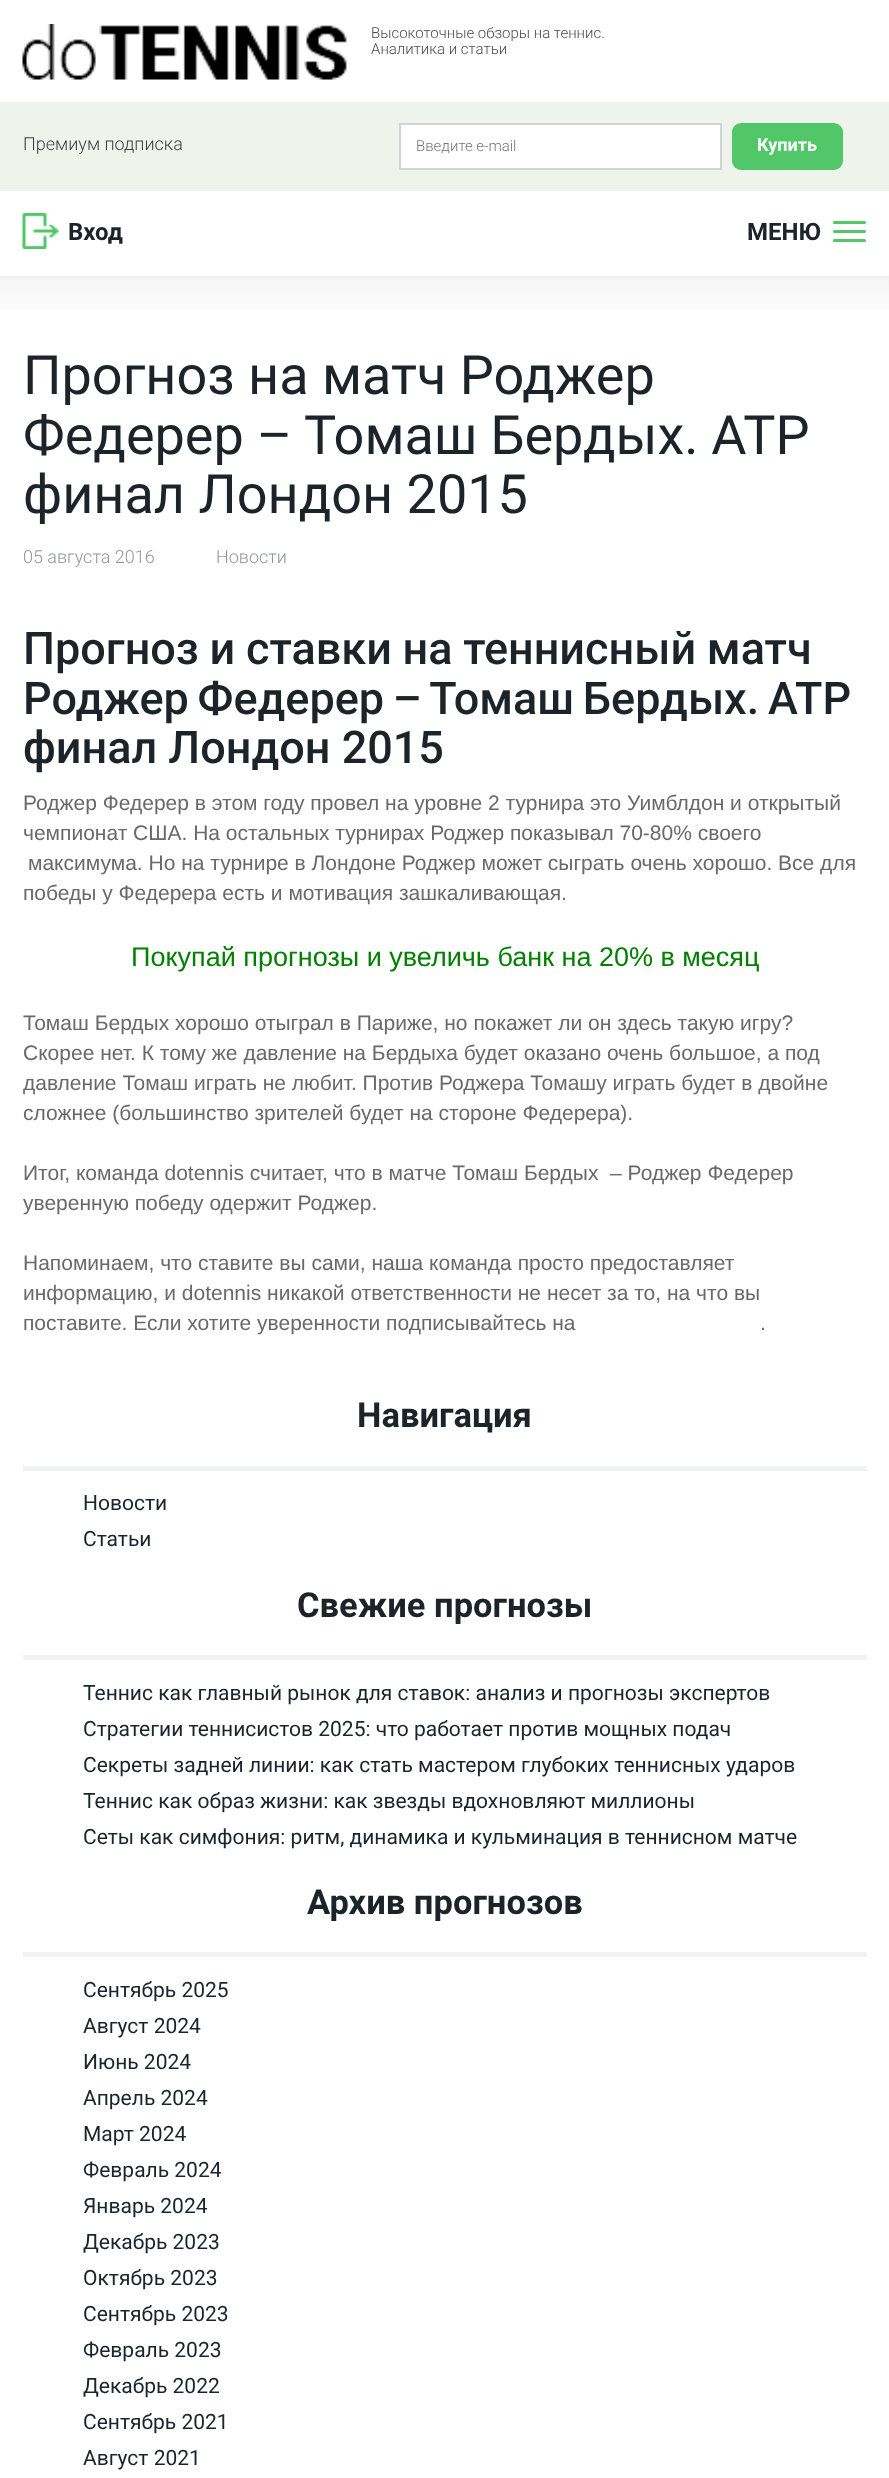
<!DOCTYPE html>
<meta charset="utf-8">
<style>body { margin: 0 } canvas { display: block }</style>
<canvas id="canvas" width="889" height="2478"></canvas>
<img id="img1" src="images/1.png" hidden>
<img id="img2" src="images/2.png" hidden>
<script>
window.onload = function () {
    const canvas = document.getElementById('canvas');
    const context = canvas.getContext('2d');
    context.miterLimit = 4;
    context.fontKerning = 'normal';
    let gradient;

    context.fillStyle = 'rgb(255, 255, 255)';
    context.fillRect(0, 0, 889, 2478);
    context.drawImage(document.getElementById('img1'), 22, 24, 326, 56);
    context.fillStyle = 'rgb(238, 243, 236)';
    context.fillRect(0, 102, 889, 89);
    context.fillStyle = 'rgb(255, 255, 255)';
    context.beginPath();
    context.rect(400, 124, 321, 45);
    context.fill();
    context.strokeStyle = 'rgb(209, 211, 212)';
    context.lineWidth = 2;
    context.stroke();
    context.fillStyle = 'rgb(81, 199, 105)';
    context.beginPath();
    context.roundRect(732, 123, 111, 47, 9);
    context.fill();
    context.drawImage(document.getElementById('img2'), 22, 213, 37, 36);
    context.beginPath();
    context.roundRect(833, 221, 33, 3, 1.5);
    context.fill();
    context.beginPath();
    context.roundRect(833, 230, 33, 3, 1.5);
    context.fill();
    context.beginPath();
    context.roundRect(833, 239, 33, 3, 1.5);
    context.fill();
    gradient = context.createLinearGradient(445, 277, 445, 318);
    gradient.addColorStop(0, 'rgb(244, 244, 244)');
    gradient.addColorStop(1, 'rgb(255, 255, 255)');
    context.fillStyle = gradient;
    context.fillRect(0, 278, 889, 31);
    context.fillStyle = 'rgb(238, 238, 238)';
    context.fillRect(0, 276, 889, 2);
    context.fillStyle = 'rgb(241, 242, 242)';
    context.fillRect(23, 1466, 844, 5);
    context.fillRect(23, 1655, 844, 5);
    context.fillRect(23, 1952, 844, 5);
    context.font = '300 15px Roboto';
    context.fillStyle = 'rgb(75, 75, 76)';
    context.fillText('Высокоточные обзоры на теннис.', 371, 38);
    context.fillText('Аналитика и статьи', 371, 54);
    context.font = '300 18px Roboto';
    context.fillStyle = 'rgb(65, 64, 66)';
    context.fillText('Премиум подписка', 23, 150);
    context.font = '300 15px Roboto';
    context.fillStyle = 'rgb(117, 117, 117)';
    context.fillText('Введите e-mail', 416, 151);
    context.font = 'bold 18px Roboto';
    context.fillStyle = 'rgb(255, 255, 255)';
    context.fillText('Купить', 757, 151);
    context.font = 'bold 24px Roboto';
    context.fillStyle = 'rgb(29, 36, 41)';
    context.fillText('Вход', 68, 240);
    context.fillText('МЕНЮ', 747, 240);
    context.font = '54px Roboto';
    context.fillText('Прогноз на матч Роджер', 23, 394);
    context.wordSpacing = '-0.5px';
    context.fillText('Федерер – Томаш Бердых. ATP', 23, 454);
    context.wordSpacing = '0px';
    context.fillText('финал Лондон 2015', 23, 513);
    context.font = '300 18px Roboto';
    context.fillStyle = 'rgb(147, 149, 152)';
    context.fillText('05 августа 2016', 23, 563);
    context.fillText('Новости', 216, 563);
    context.wordSpacing = '-0.5px';
    context.font = '500 45px Roboto';
    context.fillStyle = 'rgb(29, 36, 41)';
    context.fillText('Прогноз и ставки на теннисный матч', 23, 664);
    context.wordSpacing = '-2.5px';
    context.fillText('Роджер Федерер – Томаш Бердых. ATP', 23, 714);
    context.wordSpacing = '0px';
    context.fillText('финал Лондон 2015', 23, 763);
    context.font = '21px Liberation Sans';
    context.fillStyle = 'rgb(105, 105, 105)';
    context.fillText('Роджер Федерер в этом году провел на уровне 2 турнира это Уимблдон и открытый', 23, 810);
    context.fillText('чемпионат США. На остальных турнирах Роджер показывал 70-80% своего', 23, 840);
    context.fillText('максимума. Но на турнире в Лондоне Роджер может сыграть очень хорошо. Все для', 28, 870);
    context.fillText('победы у Федерера есть и мотивация зашкаливающая.', 23, 900);
    context.font = '27px Liberation Sans';
    context.fillStyle = 'rgb(0, 128, 0)';
    context.fillText('Покупай прогнозы и увеличь банк на 20% в месяц', 131, 966);
    context.font = '21px Liberation Sans';
    context.fillStyle = 'rgb(105, 105, 105)';
    context.fillText('Томаш Бердых хорошо отыграл в Париже, но покажет ли он здесь такую игру?', 23, 1030);
    context.fillText('Скорее нет. К тому же давление на Бердыха будет оказано очень большое, а под', 23, 1060);
    context.fillText('давление Томаш играть не любит. Против Роджера Томашу играть будет в двойне', 23, 1090);
    context.fillText('сложнее (большинство зрителей будет на стороне Федерера).', 23, 1120);
    context.fillText('Итог, команда dotennis считает, что в матче Томаш Бердых  – Роджер Федерер', 23, 1180);
    context.fillText('уверенную победу одержит Роджер.', 23, 1210);
    context.fillText('Напоминаем, что ставите вы сами, наша команда просто предоставляет', 23, 1270);
    context.fillText('информацию, и dotennis никакой ответственности не несет за то, на что вы', 23, 1300);
    context.fillText('поставите. Если хотите уверенности подписывайтесь на', 23, 1330);
    context.fillText('.', 760, 1330);
    context.font = 'bold 34.5px Roboto';
    context.fillStyle = 'rgb(29, 36, 41)';
    context.fillText('Навигация', 357, 1427);
    context.font = '21px Roboto';
    context.fillText('Новости', 83, 1510);
    context.fillText('Статьи', 83, 1546);
    context.font = 'bold 34.5px Roboto';
    context.fillText('Свежие прогнозы', 297, 1617);
    context.font = '21px Roboto';
    context.fillText('Теннис как главный рынок для ставок: анализ и прогнозы экспертов', 83, 1700);
    context.fillText('Стратегии теннисистов 2025: что работает против мощных подач', 83, 1736);
    context.fillText('Секреты задней линии: как стать мастером глубоких теннисных ударов', 83, 1772);
    context.fillText('Теннис как образ жизни: как звезды вдохновляют миллионы', 83, 1808);
    context.fillText('Сеты как симфония: ритм, динамика и кульминация в теннисном матче', 83, 1844);
    context.font = 'bold 34.5px Roboto';
    context.fillText('Архив прогнозов', 307, 1914);
    context.font = '21px Roboto';
    context.fillText('Сентябрь 2025', 83, 1997);
    context.fillText('Август 2024', 83, 2033);
    context.fillText('Июнь 2024', 83, 2069);
    context.fillText('Апрель 2024', 83, 2105);
    context.fillText('Март 2024', 83, 2141);
    context.fillText('Февраль 2024', 83, 2177);
    context.fillText('Январь 2024', 83, 2213);
    context.fillText('Декабрь 2023', 83, 2249);
    context.fillText('Октябрь 2023', 83, 2285);
    context.fillText('Сентябрь 2023', 83, 2321);
    context.fillText('Февраль 2023', 83, 2357);
    context.fillText('Декабрь 2022', 83, 2393);
    context.fillText('Сентябрь 2021', 83, 2429);
    context.fillText('Август 2021', 83, 2465);
};
</script>
